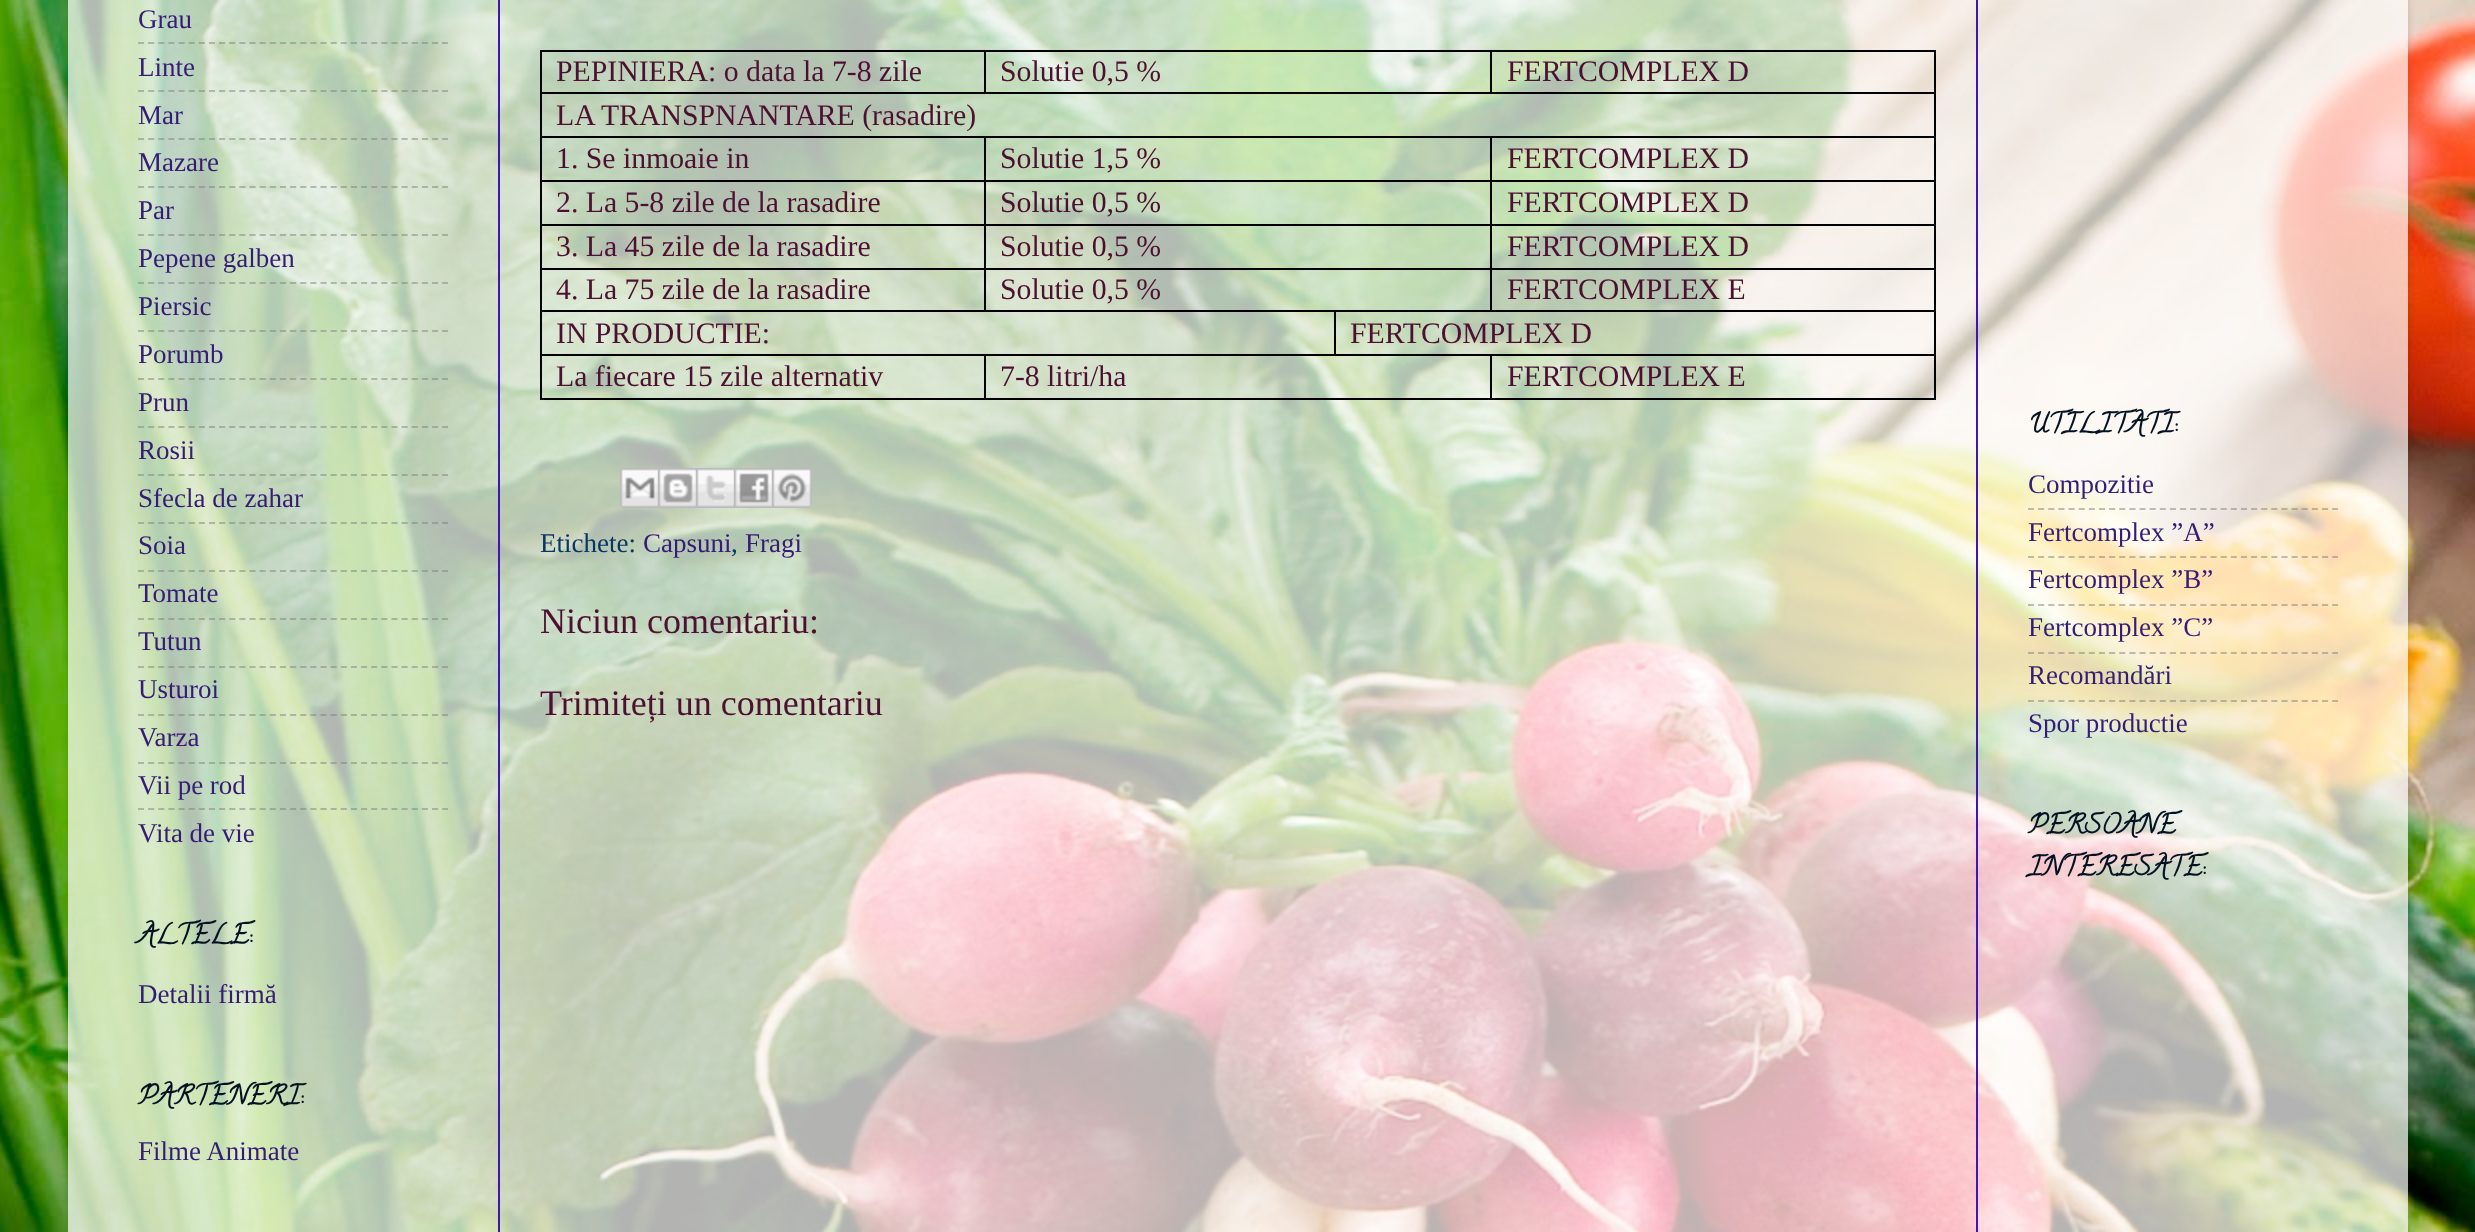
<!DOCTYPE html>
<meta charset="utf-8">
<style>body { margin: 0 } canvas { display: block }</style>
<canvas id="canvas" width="2475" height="1232"></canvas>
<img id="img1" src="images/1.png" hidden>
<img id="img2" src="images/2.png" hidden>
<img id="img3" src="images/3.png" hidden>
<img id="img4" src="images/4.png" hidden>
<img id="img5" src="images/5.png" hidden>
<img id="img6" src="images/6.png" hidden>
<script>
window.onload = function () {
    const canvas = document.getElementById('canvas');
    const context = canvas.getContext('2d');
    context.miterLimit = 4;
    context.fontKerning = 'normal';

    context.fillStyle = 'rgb(255, 255, 255)';
    context.fillRect(0, 0, 2475, 1232);
    context.drawImage(document.getElementById('img1'), 0, 0, 2475, 1232);
    context.save();
    context.beginPath();
    context.moveTo(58, 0);
    context.lineTo(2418, 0);
    context.lineTo(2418, 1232);
    context.lineTo(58, 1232);
    context.closePath();
    context.moveTo(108, -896);
    context.lineTo(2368, -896);
    context.bezierCurveTo(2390, -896, 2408, -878, 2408, -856);
    context.lineTo(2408, 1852);
    context.lineTo(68, 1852);
    context.lineTo(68, -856);
    context.bezierCurveTo(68, -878, 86, -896, 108, -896);
    context.closePath();
    context.clip('evenodd');
    context.fillStyle = 'rgba(0, 0, 0, 0.15)';
    context.filter = 'blur(3px)';
    context.beginPath();
    context.roundRect(68, -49, 2340, 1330, 40);
    context.fill();
    context.filter = 'none';
    context.restore();
    context.beginPath();
    context.moveTo(138, 43);
    context.lineTo(448, 43);
    context.strokeStyle = 'rgba(128, 128, 128, 0.5)';
    context.lineWidth = 2;
    context.setLineDash([6, 4.14]);
    context.stroke();
    context.beginPath();
    context.moveTo(138, 91);
    context.lineTo(448, 91);
    context.stroke();
    context.beginPath();
    context.moveTo(138, 139);
    context.lineTo(448, 139);
    context.stroke();
    context.beginPath();
    context.moveTo(138, 187);
    context.lineTo(448, 187);
    context.stroke();
    context.beginPath();
    context.moveTo(138, 235);
    context.lineTo(448, 235);
    context.stroke();
    context.beginPath();
    context.moveTo(138, 283);
    context.lineTo(448, 283);
    context.stroke();
    context.beginPath();
    context.moveTo(138, 331);
    context.lineTo(448, 331);
    context.stroke();
    context.beginPath();
    context.moveTo(138, 379);
    context.lineTo(448, 379);
    context.stroke();
    context.beginPath();
    context.moveTo(138, 427);
    context.lineTo(448, 427);
    context.stroke();
    context.beginPath();
    context.moveTo(138, 475);
    context.lineTo(448, 475);
    context.stroke();
    context.beginPath();
    context.moveTo(138, 523);
    context.lineTo(448, 523);
    context.stroke();
    context.beginPath();
    context.moveTo(138, 571);
    context.lineTo(448, 571);
    context.stroke();
    context.beginPath();
    context.moveTo(138, 619);
    context.lineTo(448, 619);
    context.stroke();
    context.beginPath();
    context.moveTo(138, 667);
    context.lineTo(448, 667);
    context.stroke();
    context.beginPath();
    context.moveTo(138, 715);
    context.lineTo(448, 715);
    context.stroke();
    context.beginPath();
    context.moveTo(138, 763);
    context.lineTo(448, 763);
    context.stroke();
    context.beginPath();
    context.moveTo(138, 809);
    context.lineTo(448, 809);
    context.stroke();
    context.strokeStyle = 'rgb(64, 22, 178)';
    context.setLineDash([]);
    context.strokeRect(499, -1, 1478, 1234);
    context.fillStyle = 'rgb(0, 0, 0)';
    context.fillRect(1490, 50, 446, 2);
    context.fillRect(540, 92, 1396, 2);
    context.fillRect(1490, 50, 2, 44);
    context.fillRect(984, 50, 508, 2);
    context.fillRect(984, 50, 2, 44);
    context.fillRect(540, 50, 446, 2);
    context.fillRect(1934, 136, 2, 264);
    context.fillRect(1934, 92, 2, 46);
    context.fillRect(1490, 310, 446, 2);
    context.fillRect(1490, 268, 2, 44);
    context.fillRect(1490, 268, 446, 2);
    context.fillRect(1490, 224, 2, 46);
    context.fillRect(1490, 224, 446, 2);
    context.fillRect(1490, 180, 2, 46);
    context.fillRect(1490, 180, 446, 2);
    context.fillRect(1490, 136, 2, 46);
    context.fillRect(540, 180, 446, 2);
    context.fillRect(540, 224, 446, 2);
    context.fillRect(540, 268, 446, 2);
    context.fillRect(1490, 398, 446, 2);
    context.fillRect(1490, 354, 2, 46);
    context.fillRect(1334, 354, 602, 2);
    context.fillRect(1334, 310, 2, 46);
    context.fillRect(984, 310, 508, 2);
    context.fillRect(984, 268, 2, 44);
    context.fillRect(984, 268, 508, 2);
    context.fillRect(984, 224, 2, 46);
    context.fillRect(984, 224, 508, 2);
    context.fillRect(984, 180, 2, 46);
    context.fillRect(984, 180, 508, 2);
    context.fillRect(984, 136, 2, 46);
    context.fillRect(540, 310, 444, 2);
    context.fillRect(984, 398, 508, 2);
    context.fillRect(984, 354, 2, 46);
    context.fillRect(540, 398, 446, 2);
    context.fillRect(540, 354, 2, 46);
    context.fillRect(540, 354, 796, 2);
    context.fillRect(540, 310, 2, 46);
    context.fillRect(540, 268, 2, 44);
    context.fillRect(540, 224, 2, 46);
    context.fillRect(540, 136, 2, 90);
    context.fillRect(540, 136, 1396, 2);
    context.fillRect(540, 92, 2, 46);
    context.fillRect(540, 50, 2, 44);
    context.fillRect(1934, 50, 2, 44);
    context.drawImage(document.getElementById('img2'), 620, 468, 38, 40);
    context.drawImage(document.getElementById('img3'), 658, 468, 38, 40);
    context.drawImage(document.getElementById('img4'), 696, 468, 38, 40);
    context.drawImage(document.getElementById('img5'), 734, 468, 38, 40);
    context.drawImage(document.getElementById('img6'), 772, 468, 40, 40);
    context.beginPath();
    context.moveTo(2028, 509);
    context.lineTo(2338, 509);
    context.strokeStyle = 'rgba(128, 128, 128, 0.5)';
    context.setLineDash([6, 4.14]);
    context.stroke();
    context.beginPath();
    context.moveTo(2028, 557);
    context.lineTo(2338, 557);
    context.stroke();
    context.beginPath();
    context.moveTo(2028, 605);
    context.lineTo(2338, 605);
    context.stroke();
    context.beginPath();
    context.moveTo(2028, 653);
    context.lineTo(2338, 653);
    context.stroke();
    context.beginPath();
    context.moveTo(2028, 701);
    context.lineTo(2338, 701);
    context.stroke();
    context.font = '27px Liberation Serif';
    context.fillStyle = 'rgb(53, 28, 117)';
    context.fillText('Grau', 138, 28);
    context.fillText('Linte', 138, 76);
    context.fillText('Mar', 138, 124);
    context.fillText('Mazare', 138, 171);
    context.fillText('Par', 138, 219);
    context.fillText('Pepene galben', 138, 267);
    context.fillText('Piersic', 138, 315);
    context.fillText('Porumb', 138, 363);
    context.fillText('Prun', 138, 411);
    context.fillText('Rosii', 138, 459);
    context.fillText('Sfecla de zahar', 138, 507);
    context.fillText('Soia', 138, 554);
    context.fillText('Tomate', 138, 602);
    context.fillText('Tutun', 138, 650);
    context.fillText('Usturoi', 138, 698);
    context.fillText('Varza', 138, 746);
    context.fillText('Vii pe rod', 138, 794);
    context.fillText('Vita de vie', 138, 842);
    context.font = 'bold 27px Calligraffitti';
    context.fillStyle = 'rgb(3, 19, 34)';
    context.fillText('ALTELE:', 138, 943);
    context.font = '27px Liberation Serif';
    context.fillStyle = 'rgb(53, 28, 117)';
    context.fillText('Detalii firmă', 138, 1003);
    context.font = 'bold 27px Calligraffitti';
    context.fillStyle = 'rgb(3, 19, 34)';
    context.fillText('PARTENERI:', 138, 1104);
    context.font = '27px Liberation Serif';
    context.fillStyle = 'rgb(53, 28, 117)';
    context.fillText('Filme Animate', 138, 1160);
    context.font = '29.75px Liberation Serif';
    context.fillStyle = 'rgb(76, 17, 48)';
    context.fillText('PEPINIERA: o data la 7-8 zile', 556, 81);
    context.fillText('Solutie 0,5 %', 1000, 81);
    context.fillText('FERTCOMPLEX D', 1507, 81);
    context.fillText('LA TRANSPNANTARE (rasadire)', 556, 125);
    context.fillText('1. Se inmoaie in', 556, 168);
    context.fillText('Solutie 1,5 %', 1000, 168);
    context.fillText('FERTCOMPLEX D', 1507, 168);
    context.fillText('2. La 5-8 zile de la rasadire', 556, 212);
    context.fillText('Solutie 0,5 %', 1000, 212);
    context.fillText('FERTCOMPLEX D', 1507, 212);
    context.fillText('3. La 45 zile de la rasadire', 556, 256);
    context.fillText('Solutie 0,5 %', 1000, 256);
    context.fillText('FERTCOMPLEX D', 1507, 256);
    context.fillText('4. La 75 zile de la rasadire', 556, 299);
    context.fillText('Solutie 0,5 %', 1000, 299);
    context.fillText('FERTCOMPLEX E', 1507, 299);
    context.fillText('IN PRODUCTIE:', 556, 343);
    context.fillText('FERTCOMPLEX D', 1350, 343);
    context.fillText('La fiecare 15 zile alternativ', 556, 386);
    context.fillText('7-8 litri/ha', 1000, 386);
    context.fillText('FERTCOMPLEX E', 1507, 386);
    context.font = '27px Liberation Serif';
    context.fillStyle = 'rgb(7, 55, 99)';
    context.fillText('Etichete:', 540, 552);
    context.fillStyle = 'rgb(53, 28, 117)';
    context.fillText('Capsuni', 643, 552);
    context.fillStyle = 'rgb(7, 55, 99)';
    context.fillText(',', 731, 552);
    context.fillStyle = 'rgb(53, 28, 117)';
    context.fillText('Fragi', 745, 552);
    context.font = '36px Liberation Serif';
    context.fillStyle = 'rgb(76, 17, 48)';
    context.fillText('Niciun comentariu:', 540, 633);
    context.fillText('Trimiteți un comentariu', 540, 715);
    context.font = 'bold 27px Calligraffitti';
    context.fillStyle = 'rgb(3, 19, 34)';
    context.fillText('UTILITATI:', 2028, 432);
    context.font = '27px Liberation Serif';
    context.fillStyle = 'rgb(53, 28, 117)';
    context.fillText('Compozitie', 2028, 493);
    context.fillText('Fertcomplex ”A”', 2028, 541);
    context.fillText('Fertcomplex ”B”', 2028, 588);
    context.fillText('Fertcomplex ”C”', 2028, 636);
    context.fillText('Recomandări', 2028, 684);
    context.fillText('Spor productie', 2028, 732);
    context.font = 'bold 27px Calligraffitti';
    context.fillStyle = 'rgb(3, 19, 34)';
    context.fillText('PERSOANE', 2028, 833);
    context.fillText('INTERESATE:', 2028, 875);
};
</script>
